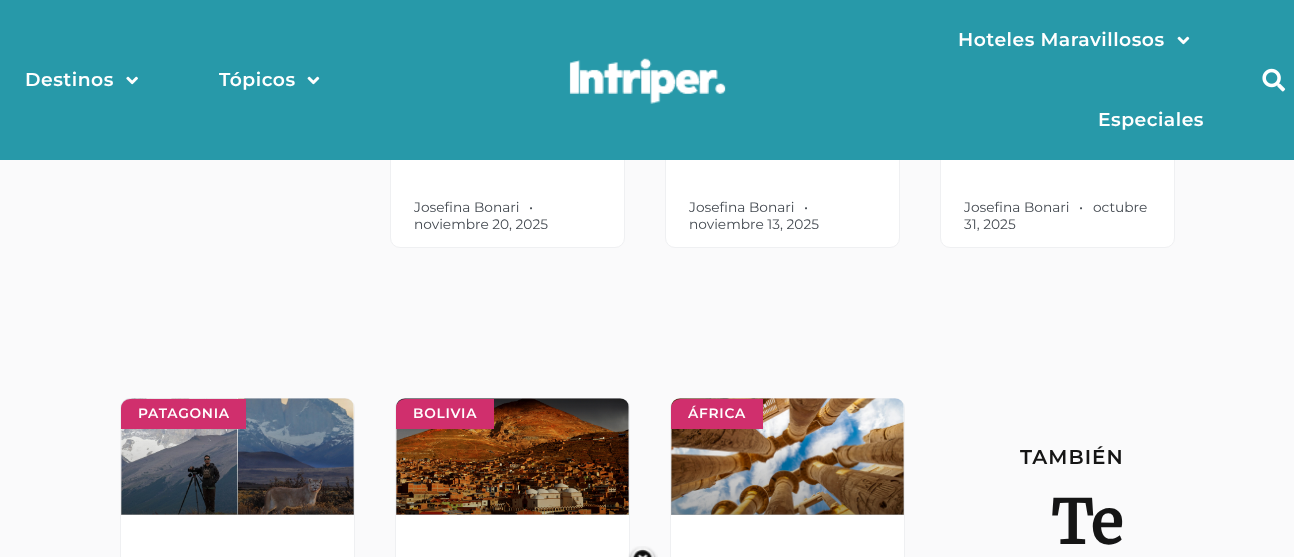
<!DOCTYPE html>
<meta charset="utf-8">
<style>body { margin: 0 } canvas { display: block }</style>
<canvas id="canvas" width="1294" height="557"></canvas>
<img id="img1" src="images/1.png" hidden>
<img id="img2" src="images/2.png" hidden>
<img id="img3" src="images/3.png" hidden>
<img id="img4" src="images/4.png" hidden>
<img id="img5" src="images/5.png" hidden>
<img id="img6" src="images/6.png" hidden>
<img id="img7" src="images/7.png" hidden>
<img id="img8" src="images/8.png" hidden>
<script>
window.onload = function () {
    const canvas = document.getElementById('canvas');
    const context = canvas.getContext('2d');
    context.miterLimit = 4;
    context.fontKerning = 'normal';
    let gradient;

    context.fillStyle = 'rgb(250, 250, 251)';
    context.fillRect(0, 0, 1294, 557);
    context.fillStyle = 'rgb(255, 255, 255)';
    context.beginPath();
    context.roundRect(390.5, -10.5, 234, 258, 9.5);
    context.fill();
    context.strokeStyle = 'rgb(239, 240, 242)';
    context.stroke();
    context.beginPath();
    context.roundRect(665.5, -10.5, 234, 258, 9.5);
    context.fill();
    context.stroke();
    context.beginPath();
    context.roundRect(940.5, -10.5, 234, 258, 9.5);
    context.fill();
    context.stroke();
    context.fillStyle = 'rgb(39, 153, 169)';
    context.fillRect(0, 0, 1294, 160);
    context.drawImage(document.getElementById('img1'), 126, 76, 12, 9);
    context.drawImage(document.getElementById('img2'), 307, 76, 13, 9);
    context.drawImage(document.getElementById('img3'), 569, 58, 157, 46);
    context.drawImage(document.getElementById('img2'), 1177, 36, 13, 9);
    context.drawImage(document.getElementById('img4'), 1262, 68, 24, 24);
    context.fillStyle = 'rgb(255, 255, 255)';
    context.beginPath();
    context.roundRect(120.5, 398.5, 234, 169, 9.5);
    context.fill();
    context.stroke();
    context.drawImage(document.getElementById('img5'), 121, 398, 233, 117);
    gradient = context.createLinearGradient(238, 515, 238, 399);
    gradient.addColorStop(0, 'rgba(0, 0, 0, 0.35)');
    gradient.addColorStop(0.75, 'rgba(0, 0, 0, 0)');
    context.fillStyle = gradient;
    context.fillRect(121, 433, 233, 82);
    context.fillStyle = 'rgb(208, 47, 109)';
    context.beginPath();
    context.roundRect(121, 399, 125, 30, [9, 0, 0, 0]);
    context.fill();
    context.fillStyle = 'rgb(255, 255, 255)';
    context.beginPath();
    context.roundRect(395.5, 398.5, 234, 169, 9.5);
    context.fill();
    context.stroke();
    context.drawImage(document.getElementById('img6'), 396, 398, 233, 117);
    gradient = context.createLinearGradient(513, 515, 513, 399);
    gradient.addColorStop(0, 'rgba(0, 0, 0, 0.35)');
    gradient.addColorStop(0.75, 'rgba(0, 0, 0, 0)');
    context.fillStyle = gradient;
    context.fillRect(396, 433, 233, 82);
    context.fillStyle = 'rgb(208, 47, 109)';
    context.beginPath();
    context.roundRect(396, 399, 98, 30, [9, 0, 0, 0]);
    context.fill();
    context.fillStyle = 'rgb(255, 255, 255)';
    context.beginPath();
    context.roundRect(670.5, 398.5, 234, 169, 9.5);
    context.fill();
    context.stroke();
    context.drawImage(document.getElementById('img7'), 671, 398, 233, 117);
    gradient = context.createLinearGradient(788, 515, 788, 399);
    gradient.addColorStop(0, 'rgba(0, 0, 0, 0.35)');
    gradient.addColorStop(0.75, 'rgba(0, 0, 0, 0)');
    context.fillStyle = gradient;
    context.fillRect(671, 433, 233, 82);
    context.fillStyle = 'rgb(208, 47, 109)';
    context.beginPath();
    context.roundRect(671, 399, 92, 30, [9, 0, 0, 0]);
    context.fill();
    context.drawImage(document.getElementById('img8'), 628, 546, 30, 11);
    context.letterSpacing = '0.5px';
    context.font = '600 18.75px Montserrat';
    context.fillStyle = 'rgb(255, 255, 255)';
    context.fillText('Destinos', 25, 86);
    context.fillText('Tópicos', 219, 86);
    context.fillText('Hoteles Maravillosos', 958, 46);
    context.fillText('Especiales', 1098, 126);
    context.letterSpacing = '0px';
    context.font = '13.75px Montserrat';
    context.fillStyle = 'rgb(68, 74, 81)';
    context.fillText('Josefina Bonari', 414, 212);
    context.fillText('•', 529, 212);
    context.fillText('noviembre 20, 2025', 414, 229);
    context.fillText('Josefina Bonari', 689, 212);
    context.fillText('•', 804, 212);
    context.fillText('noviembre 13, 2025', 689, 229);
    context.fillText('Josefina Bonari', 964, 212);
    context.fillText('•', 1079, 212);
    context.fillText('octubre', 1093, 212);
    context.fillText('31, 2025', 964, 229);
    context.letterSpacing = '0.75px';
    context.font = '600 13.75px Montserrat';
    context.fillStyle = 'rgb(255, 255, 255)';
    context.fillText('PATAGONIA', 138, 418);
    context.fillText('BOLIVIA', 413, 418);
    context.fillText('ÁFRICA', 688, 418);
    context.letterSpacing = '1px';
    context.font = '600 20px Montserrat';
    context.fillStyle = 'rgb(21, 21, 21)';
    context.fillText('TAMBIÉN', 1020, 464);
    context.letterSpacing = '0px';
    context.font = 'bold 60px Merriweather';
    context.fillText('Te', 1051, 544);
};
</script>
